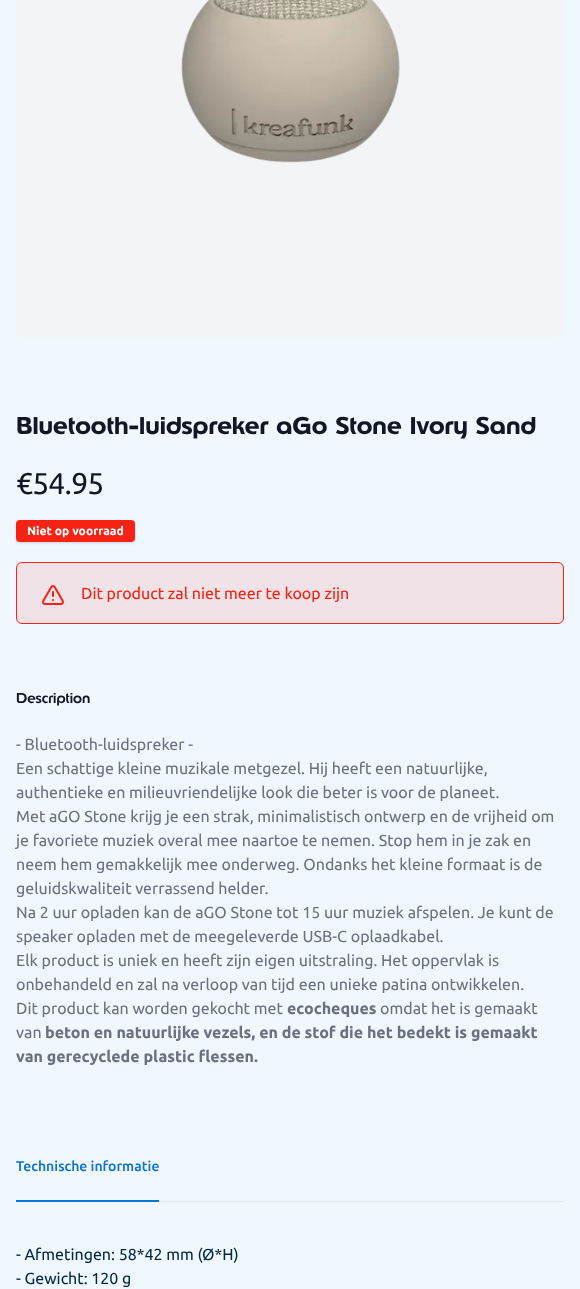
<!DOCTYPE html>
<meta charset="utf-8">
<style>body { margin: 0 } canvas { display: block }</style>
<canvas id="canvas" width="580" height="1289"></canvas>
<img id="img1" src="images/1.png" hidden>
<img id="img2" src="images/2.png" hidden>
<script>
window.onload = function () {
    const canvas = document.getElementById('canvas');
    const context = canvas.getContext('2d');
    context.miterLimit = 4;
    context.fontKerning = 'normal';

    context.fillStyle = 'rgb(240, 247, 255)';
    context.fillRect(0, 0, 580, 1289);
    context.fillStyle = 'rgb(243, 244, 246)';
    context.beginPath();
    context.roundRect(16, -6, 548, 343, 6);
    context.fill();
    context.drawImage(document.getElementById('img1'), 181, 0, 219, 163);
    context.fillStyle = 'rgba(0, 0, 0, 0.1)';
    context.filter = 'blur(1px)';
    context.beginPath();
    context.roundRect(17, 522, 117, 20, 3);
    context.fill();
    context.filter = 'none';
    context.filter = 'blur(1.5px)';
    context.beginPath();
    context.roundRect(16, 521, 119, 22, 4);
    context.fill();
    context.filter = 'none';
    context.fillStyle = 'rgb(246, 34, 19)';
    context.beginPath();
    context.roundRect(16, 520, 119, 22, 4);
    context.fill();
    context.fillStyle = 'rgb(241, 226, 231)';
    context.beginPath();
    context.roundRect(16.5, 562.5, 547, 61, 5.5);
    context.fill();
    context.strokeStyle = 'rgb(246, 34, 19)';
    context.stroke();
    context.drawImage(document.getElementById('img2'), 42, 585, 22, 20);
    context.fillStyle = 'rgb(229, 231, 235)';
    context.fillRect(159, 1201, 405, 1);
    context.fillStyle = 'rgb(11, 115, 212)';
    context.fillRect(16, 1200, 143, 2);
    context.font = 'bold 24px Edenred';
    context.fillStyle = 'rgb(16, 24, 40)';
    context.fillText('Bluetooth-luidspreker aGo Stone Ivory Sand', 16, 434);
    context.letterSpacing = '-0.75px';
    context.font = '30px Ubuntu';
    context.fillText('€54.95', 16, 494);
    context.letterSpacing = '0px';
    context.font = 'bold 12px Ubuntu';
    context.fillStyle = 'rgb(255, 255, 255)';
    context.fillText('Niet op voorraad', 27, 535);
    context.font = '16px Ubuntu';
    context.fillStyle = 'rgb(246, 34, 19)';
    context.fillText('Dit product zal niet meer te koop zijn', 81, 599);
    context.font = '500 14px Edenred';
    context.fillStyle = 'rgb(16, 24, 40)';
    context.fillText('Description', 16, 703);
    context.font = '16px Ubuntu';
    context.fillStyle = 'rgb(106, 114, 130)';
    context.fillText('- Bluetooth-luidspreker -', 16, 750);
    context.fillText('Een schattige kleine muzikale metgezel. Hij heeft een natuurlijke,', 16, 774);
    context.fillText('authentieke en milieuvriendelijke look die beter is voor de planeet.', 16, 798);
    context.fillText('Met aGO Stone krijg je een strak, minimalistisch ontwerp en de vrijheid om', 16, 822);
    context.fillText('je favoriete muziek overal mee naartoe te nemen. Stop hem in je zak en', 16, 846);
    context.fillText('neem hem gemakkelijk mee onderweg. Ondanks het kleine formaat is de', 16, 870);
    context.fillText('geluidskwaliteit verrassend helder.', 16, 894);
    context.fillText('Na 2 uur opladen kan de aGO Stone tot 15 uur muziek afspelen. Je kunt de', 16, 918);
    context.fillText('speaker opladen met de meegeleverde USB-C oplaadkabel.', 16, 942);
    context.fillText('Elk product is uniek en heeft zijn eigen uitstraling. Het oppervlak is', 16, 966);
    context.fillText('onbehandeld en zal na verloop van tijd een unieke patina ontwikkelen.', 16, 990);
    context.fillText('Dit product kan worden gekocht met', 16, 1014);
    context.font = 'bold 16px Ubuntu';
    context.fillText('ecocheques', 287, 1014);
    context.font = '16px Ubuntu';
    context.fillText('omdat het is gemaakt', 380, 1014);
    context.fillText('van', 16, 1038);
    context.font = 'bold 16px Ubuntu';
    context.fillText('beton en natuurlijke vezels, en de stof die het bedekt is gemaakt', 45, 1038);
    context.fillText('van gerecyclede plastic flessen.', 16, 1062);
    context.font = '500 14px Ubuntu';
    context.fillStyle = 'rgb(11, 115, 212)';
    context.fillText('Technische informatie', 16, 1171);
    context.font = '16px Ubuntu';
    context.fillStyle = 'rgb(0, 41, 69)';
    context.fillText('- Afmetingen: 58*42 mm (Ø*H)', 16, 1260);
    context.fillText('- Gewicht: 120 g', 16, 1284);
};
</script>
